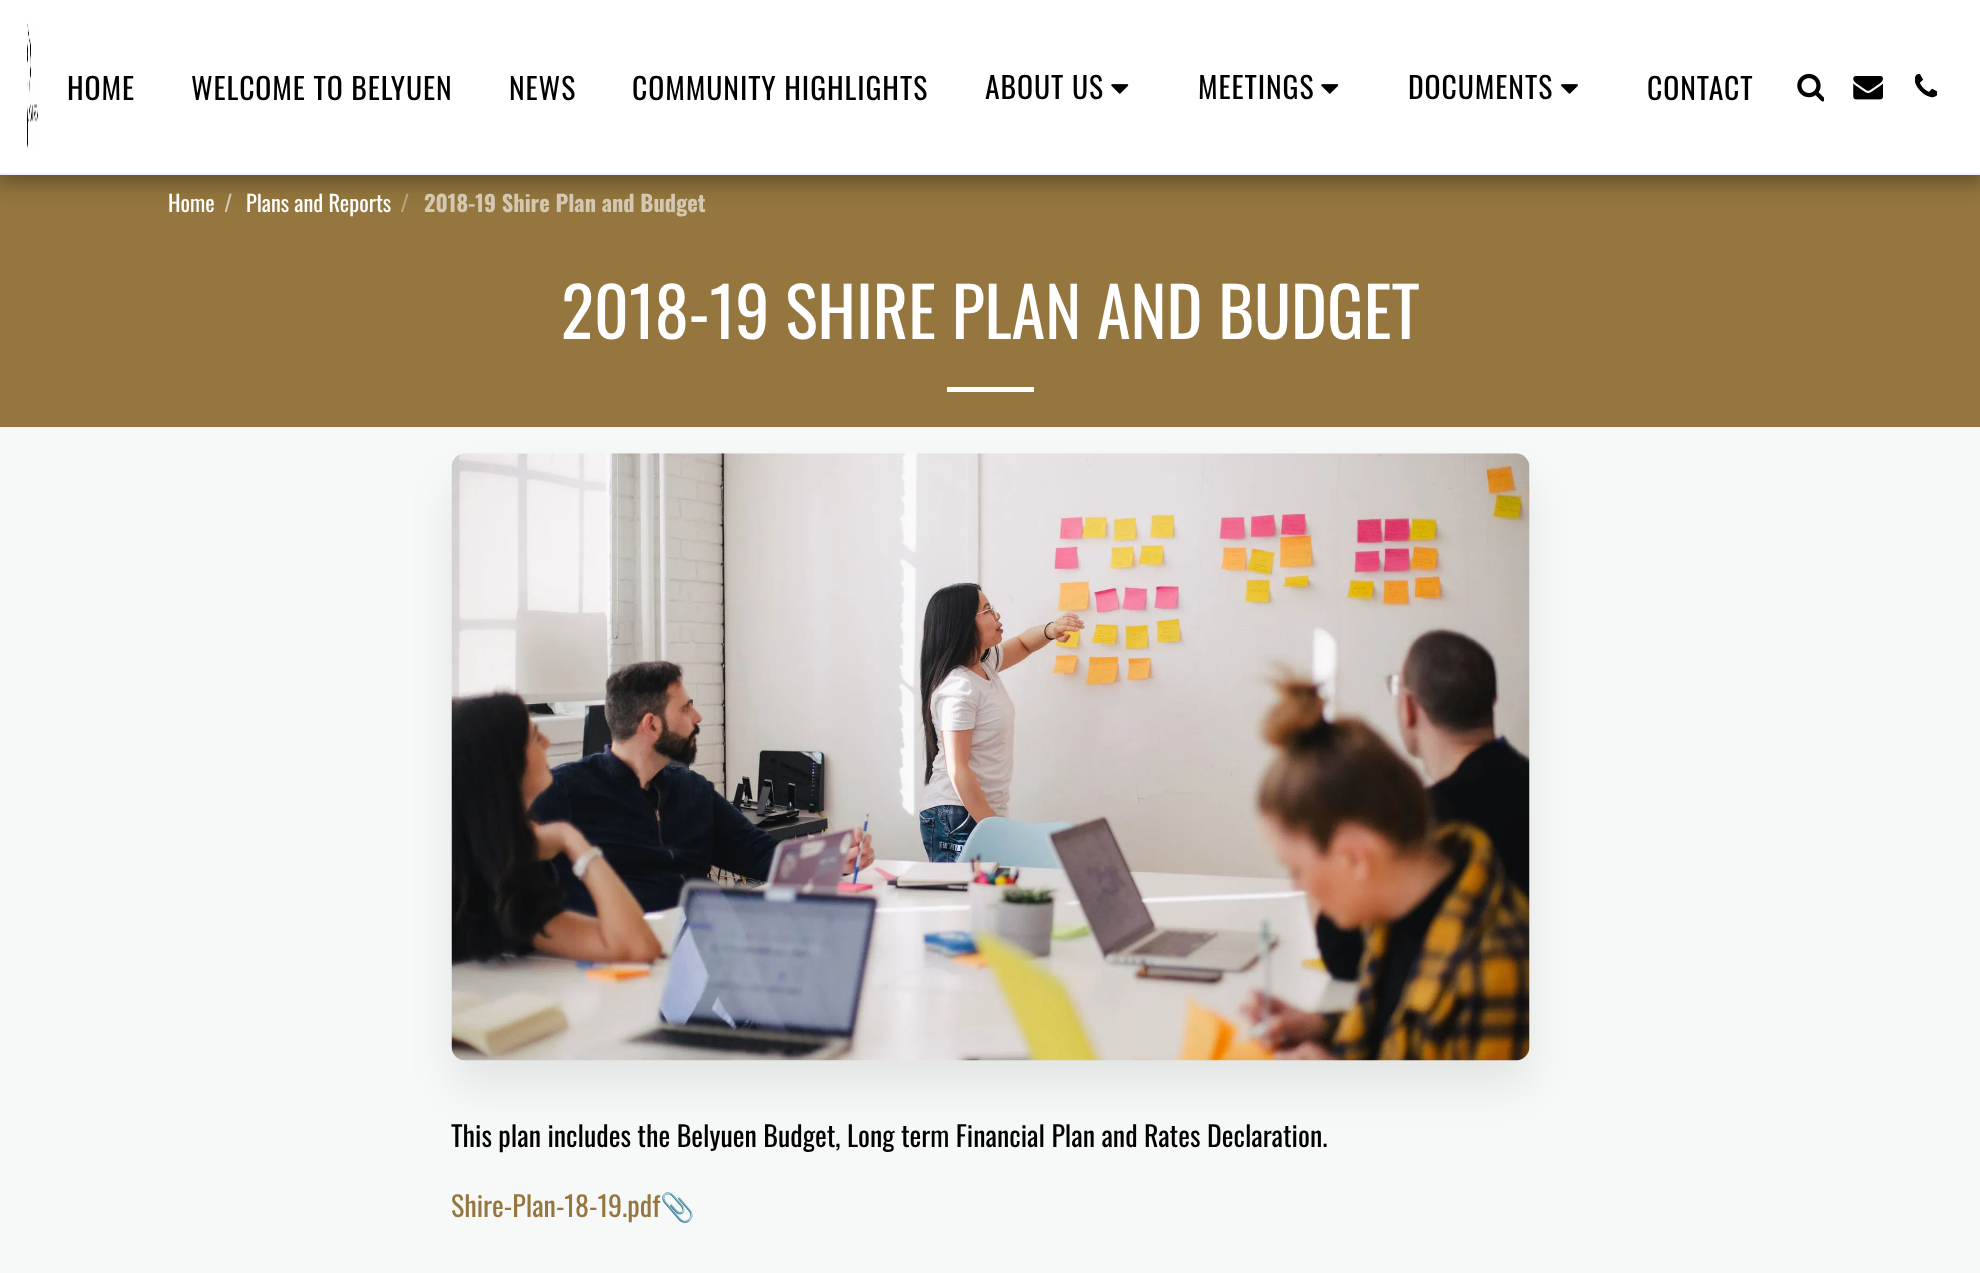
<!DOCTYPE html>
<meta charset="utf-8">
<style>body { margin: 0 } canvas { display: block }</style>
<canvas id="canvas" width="1980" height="1273"></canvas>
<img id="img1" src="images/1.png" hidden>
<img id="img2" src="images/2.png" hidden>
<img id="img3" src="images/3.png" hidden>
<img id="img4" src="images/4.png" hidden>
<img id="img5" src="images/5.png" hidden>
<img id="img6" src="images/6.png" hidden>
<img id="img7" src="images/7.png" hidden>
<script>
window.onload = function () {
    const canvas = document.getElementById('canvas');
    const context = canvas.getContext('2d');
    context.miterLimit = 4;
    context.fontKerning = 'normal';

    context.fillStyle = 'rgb(247, 249, 248)';
    context.fillRect(0, 0, 1980, 1273);
    context.fillStyle = 'rgb(148, 118, 62)';
    context.fillRect(0, 175, 1980, 252);
    context.fillStyle = 'rgba(0, 0, 0, 0.35)';
    context.filter = 'blur(10.5px)';
    context.beginPath();
    context.rect(-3, 0, 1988, 182);
    context.fill();
    context.filter = 'none';
    context.fillStyle = 'rgb(255, 255, 255)';
    context.fillRect(0, 0, 1980, 173);
    context.fillStyle = 'rgb(242, 240, 252)';
    context.fillRect(0, 173, 1980, 2);
    context.drawImage(document.getElementById('img1'), 27, 23, 11, 125);
    context.drawImage(document.getElementById('img2'), 1111, 84, 18, 10);
    context.drawImage(document.getElementById('img2'), 1321, 84, 18, 10);
    context.drawImage(document.getElementById('img3'), 1561, 84, 17, 10);
    context.drawImage(document.getElementById('img4'), 1797, 73, 27, 29);
    context.drawImage(document.getElementById('img5'), 1853, 76, 30, 24);
    context.drawImage(document.getElementById('img6'), 1915, 73, 22, 25);
    context.fillStyle = 'rgb(255, 255, 255)';
    context.fillRect(947, 387, 87, 5);
    context.fillStyle = 'rgba(0, 0, 0, 0.08)';
    context.filter = 'blur(22px)';
    context.beginPath();
    context.roundRect(452, 480, 1078, 607, 14);
    context.fill();
    context.filter = 'none';
    context.drawImage(document.getElementById('img7'), 451, 453, 1079, 608);
    context.letterSpacing = '0.9px';
    context.font = '29.75px Oswald';
    context.fillStyle = 'rgb(0, 0, 0)';
    context.fillText('HOME', 67, 100);
    context.fillText('WELCOME TO BELYUEN', 191, 100);
    context.fillText('NEWS', 509, 100);
    context.fillText('COMMUNITY HIGHLIGHTS', 632, 100);
    context.fillText('ABOUT US', 985, 99);
    context.fillText('MEETINGS', 1198, 99);
    context.fillText('DOCUMENTS', 1408, 99);
    context.fillText('CONTACT', 1647, 100);
    context.letterSpacing = '0px';
    context.font = '22.4px Oswald';
    context.fillStyle = 'rgb(255, 255, 255)';
    context.fillText('Home', 168, 212);
    context.fillStyle = 'rgb(212, 200, 178)';
    context.fillText('/', 224, 212);
    context.fillStyle = 'rgb(255, 255, 255)';
    context.fillText('Plans and Reports', 246, 212);
    context.font = 'bold 22.4px Oswald';
    context.fillStyle = 'rgb(187, 167, 131)';
    context.fillText('/', 400, 212);
    context.fillStyle = 'rgb(212, 200, 178)';
    context.fillText('2018-19 Shire Plan and Budget', 424, 212);
    context.font = '68.3px Oswald';
    context.fillStyle = 'rgb(255, 255, 255)';
    context.fillText('2018-19 SHIRE PLAN AND BUDGET', 561, 339);
    context.font = '28px Oswald';
    context.fillStyle = 'rgb(0, 0, 0)';
    context.fillText('This plan includes the Belyuen Budget, Long term Financial Plan and Rates Declaration.', 451, 1147);
    context.fillStyle = 'rgb(148, 118, 62)';
    context.fillText('Shire-Plan-18-19.pdf', 451, 1217);
    context.font = '28px Noto Color Emoji';
    context.fillText('📎', 660, 1217);
};
</script>
